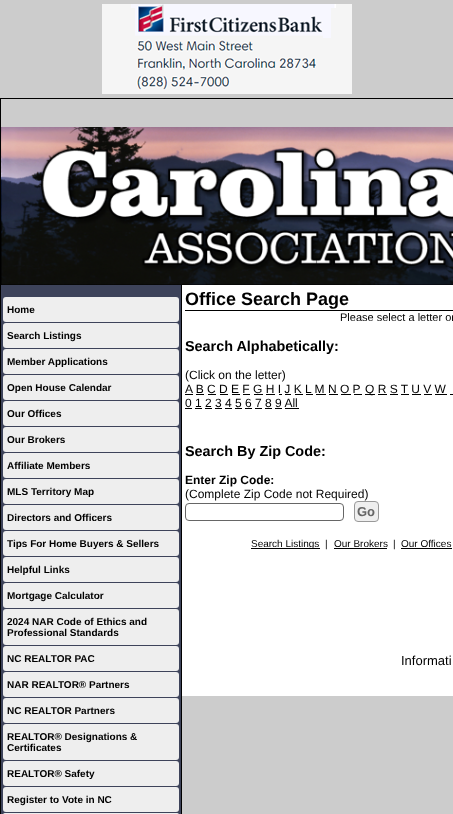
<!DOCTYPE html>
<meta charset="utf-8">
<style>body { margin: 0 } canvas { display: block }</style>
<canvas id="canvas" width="453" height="814"></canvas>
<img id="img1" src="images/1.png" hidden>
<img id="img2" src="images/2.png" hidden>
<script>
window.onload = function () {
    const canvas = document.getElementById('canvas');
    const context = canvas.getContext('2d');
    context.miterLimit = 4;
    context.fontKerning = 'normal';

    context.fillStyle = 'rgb(204, 204, 204)';
    context.fillRect(0, 0, 453, 814);
    context.drawImage(document.getElementById('img1'), 102, 4, 250, 90);
    context.strokeStyle = 'rgb(0, 0, 0)';
    context.strokeRect(0.5, 98.5, 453, 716);
    context.drawImage(document.getElementById('img2'), 1, 127, 452, 158);
    context.fillStyle = 'rgb(61, 67, 90)';
    context.fillRect(1, 285, 180, 529);
    context.fillStyle = 'rgb(0, 0, 0)';
    context.fillRect(181, 285, 1, 529);
    context.fillStyle = 'rgb(238, 238, 238)';
    context.beginPath();
    context.roundRect(3, 297, 176, 25, 3);
    context.fill();
    context.beginPath();
    context.roundRect(3, 323, 176, 25, 3);
    context.fill();
    context.beginPath();
    context.roundRect(3, 349, 176, 25, 3);
    context.fill();
    context.beginPath();
    context.roundRect(3, 375, 176, 25, 3);
    context.fill();
    context.beginPath();
    context.roundRect(3, 401, 176, 25, 3);
    context.fill();
    context.beginPath();
    context.roundRect(3, 427, 176, 25, 3);
    context.fill();
    context.beginPath();
    context.roundRect(3, 453, 176, 25, 3);
    context.fill();
    context.beginPath();
    context.roundRect(3, 479, 176, 25, 3);
    context.fill();
    context.beginPath();
    context.roundRect(3, 505, 176, 25, 3);
    context.fill();
    context.beginPath();
    context.roundRect(3, 531, 176, 25, 3);
    context.fill();
    context.beginPath();
    context.roundRect(3, 557, 176, 25, 3);
    context.fill();
    context.beginPath();
    context.roundRect(3, 583, 176, 25, 3);
    context.fill();
    context.beginPath();
    context.roundRect(3, 609, 176, 36, 3);
    context.fill();
    context.beginPath();
    context.roundRect(3, 646, 176, 25, 3);
    context.fill();
    context.beginPath();
    context.roundRect(3, 672, 176, 25, 3);
    context.fill();
    context.beginPath();
    context.roundRect(3, 698, 176, 25, 3);
    context.fill();
    context.beginPath();
    context.roundRect(3, 724, 176, 36, 3);
    context.fill();
    context.beginPath();
    context.roundRect(3, 761, 176, 25, 3);
    context.fill();
    context.beginPath();
    context.roundRect(3, 787, 176, 25, 3);
    context.fill();
    context.beginPath();
    context.roundRect(3, 813, 176, 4, 3);
    context.fill();
    context.fillStyle = 'rgb(255, 255, 255)';
    context.fillRect(182, 285, 271, 411);
    context.fillStyle = 'rgb(0, 0, 0)';
    context.fillRect(185, 310, 268, 1);
    context.fillRect(185, 394, 8, 1);
    context.fillRect(365, 394, 10, 1);
    context.fillRect(196, 394, 8, 1);
    context.fillRect(208, 394, 8, 1);
    context.fillRect(220, 394, 8, 1);
    context.fillRect(232, 394, 8, 1);
    context.fillRect(243, 394, 7, 1);
    context.fillRect(254, 394, 9, 1);
    context.fillRect(266, 394, 9, 1);
    context.fillRect(279, 394, 3, 1);
    context.fillRect(285, 394, 6, 1);
    context.fillRect(295, 394, 8, 1);
    context.fillRect(306, 394, 7, 1);
    context.fillRect(316, 394, 10, 1);
    context.fillRect(329, 394, 9, 1);
    context.fillRect(341, 394, 10, 1);
    context.fillRect(354, 394, 8, 1);
    context.fillRect(378, 394, 9, 1);
    context.fillRect(390, 394, 8, 1);
    context.fillRect(401, 394, 8, 1);
    context.fillRect(412, 394, 9, 1);
    context.fillRect(424, 394, 8, 1);
    context.fillRect(435, 394, 12, 1);
    context.fillRect(450, 394, 3, 1);
    context.fillRect(185, 408, 7, 1);
    context.fillRect(195, 408, 7, 1);
    context.fillRect(205, 408, 7, 1);
    context.fillRect(215, 408, 7, 1);
    context.fillRect(225, 408, 7, 1);
    context.fillRect(235, 408, 7, 1);
    context.fillRect(245, 408, 7, 1);
    context.fillRect(255, 408, 7, 1);
    context.fillRect(265, 408, 7, 1);
    context.fillRect(275, 408, 7, 1);
    context.fillRect(285, 408, 14, 1);
    context.beginPath();
    context.roundRect(185.5, 503.5, 158, 17, 3.5);
    context.strokeStyle = 'rgb(102, 102, 102)';
    context.stroke();
    context.fillStyle = 'rgb(239, 239, 239)';
    context.beginPath();
    context.roundRect(354.5, 501.5, 24, 20, 3.5);
    context.fill();
    context.strokeStyle = 'rgb(153, 153, 153)';
    context.stroke();
    context.fillStyle = 'rgb(0, 0, 0)';
    context.fillRect(251, 548, 69, 1);
    context.fillRect(334, 548, 53, 1);
    context.fillRect(401, 548, 51, 1);
    context.font = 'bold 10px Liberation Sans';
    context.fillText('Home', 7, 313);
    context.fillText('Search Listings', 7, 339);
    context.fillText('Member Applications', 7, 365);
    context.fillText('Open House Calendar', 7, 391);
    context.fillText('Our Offices', 7, 417);
    context.fillText('Our Brokers', 7, 443);
    context.fillText('Affiliate Members', 7, 469);
    context.fillText('MLS Territory Map', 7, 495);
    context.fillText('Directors and Officers', 7, 521);
    context.fillText('Tips For Home Buyers & Sellers', 7, 547);
    context.fillText('Helpful Links', 7, 573);
    context.fillText('Mortgage Calculator', 7, 599);
    context.fillText('2024 NAR Code of Ethics and', 7, 625);
    context.fillText('Professional Standards', 7, 636);
    context.fillText('NC REALTOR PAC', 7, 662);
    context.fillText('NAR REALTOR® Partners', 7, 688);
    context.fillText('NC REALTOR Partners', 7, 714);
    context.fillText('REALTOR® Designations &', 7, 740);
    context.fillText('Certificates', 7, 751);
    context.fillText('REALTOR® Safety', 7, 777);
    context.fillText('Register to Vote in NC', 7, 803);
    context.font = 'bold 18px Liberation Sans';
    context.fillText('Office Search Page', 185, 305);
    context.font = '11px Liberation Sans';
    context.fillText('Please select a letter or', 340, 321);
    context.font = 'bold 14.4px Liberation Sans';
    context.fillText('Search Alphabetically:', 185, 351);
    context.font = '12px Liberation Sans';
    context.fillText('(Click on the letter)', 185, 379);
    context.fillText('A B C D E F G H I J K L M N O P', 185, 393);
    context.fillText('Q R S T U V W', 365, 393);
    context.fillText('0 1 2 3 4 5 6 7 8 9 All', 185, 407);
    context.font = 'bold 14.4px Liberation Sans';
    context.fillText('Search By Zip Code:', 185, 456);
    context.font = 'bold 12px Liberation Sans';
    context.fillText('Enter Zip Code:', 185, 484);
    context.font = '12px Liberation Sans';
    context.fillText('(Complete Zip Code not Required)', 185, 498);
    context.font = 'bold 13px Liberation Sans';
    context.fillStyle = 'rgb(102, 102, 102)';
    context.fillText('Go', 357, 516);
    context.font = '10px Liberation Sans';
    context.fillStyle = 'rgb(0, 0, 0)';
    context.fillText('Search Listings', 251, 547);
    context.fillText('|', 325, 547);
    context.fillText('Our Brokers', 334, 547);
    context.fillText('|', 393, 547);
    context.fillText('Our Offices', 401, 547);
    context.font = '13px Liberation Sans';
    context.fillText('Informati', 401, 665);
};
</script>
